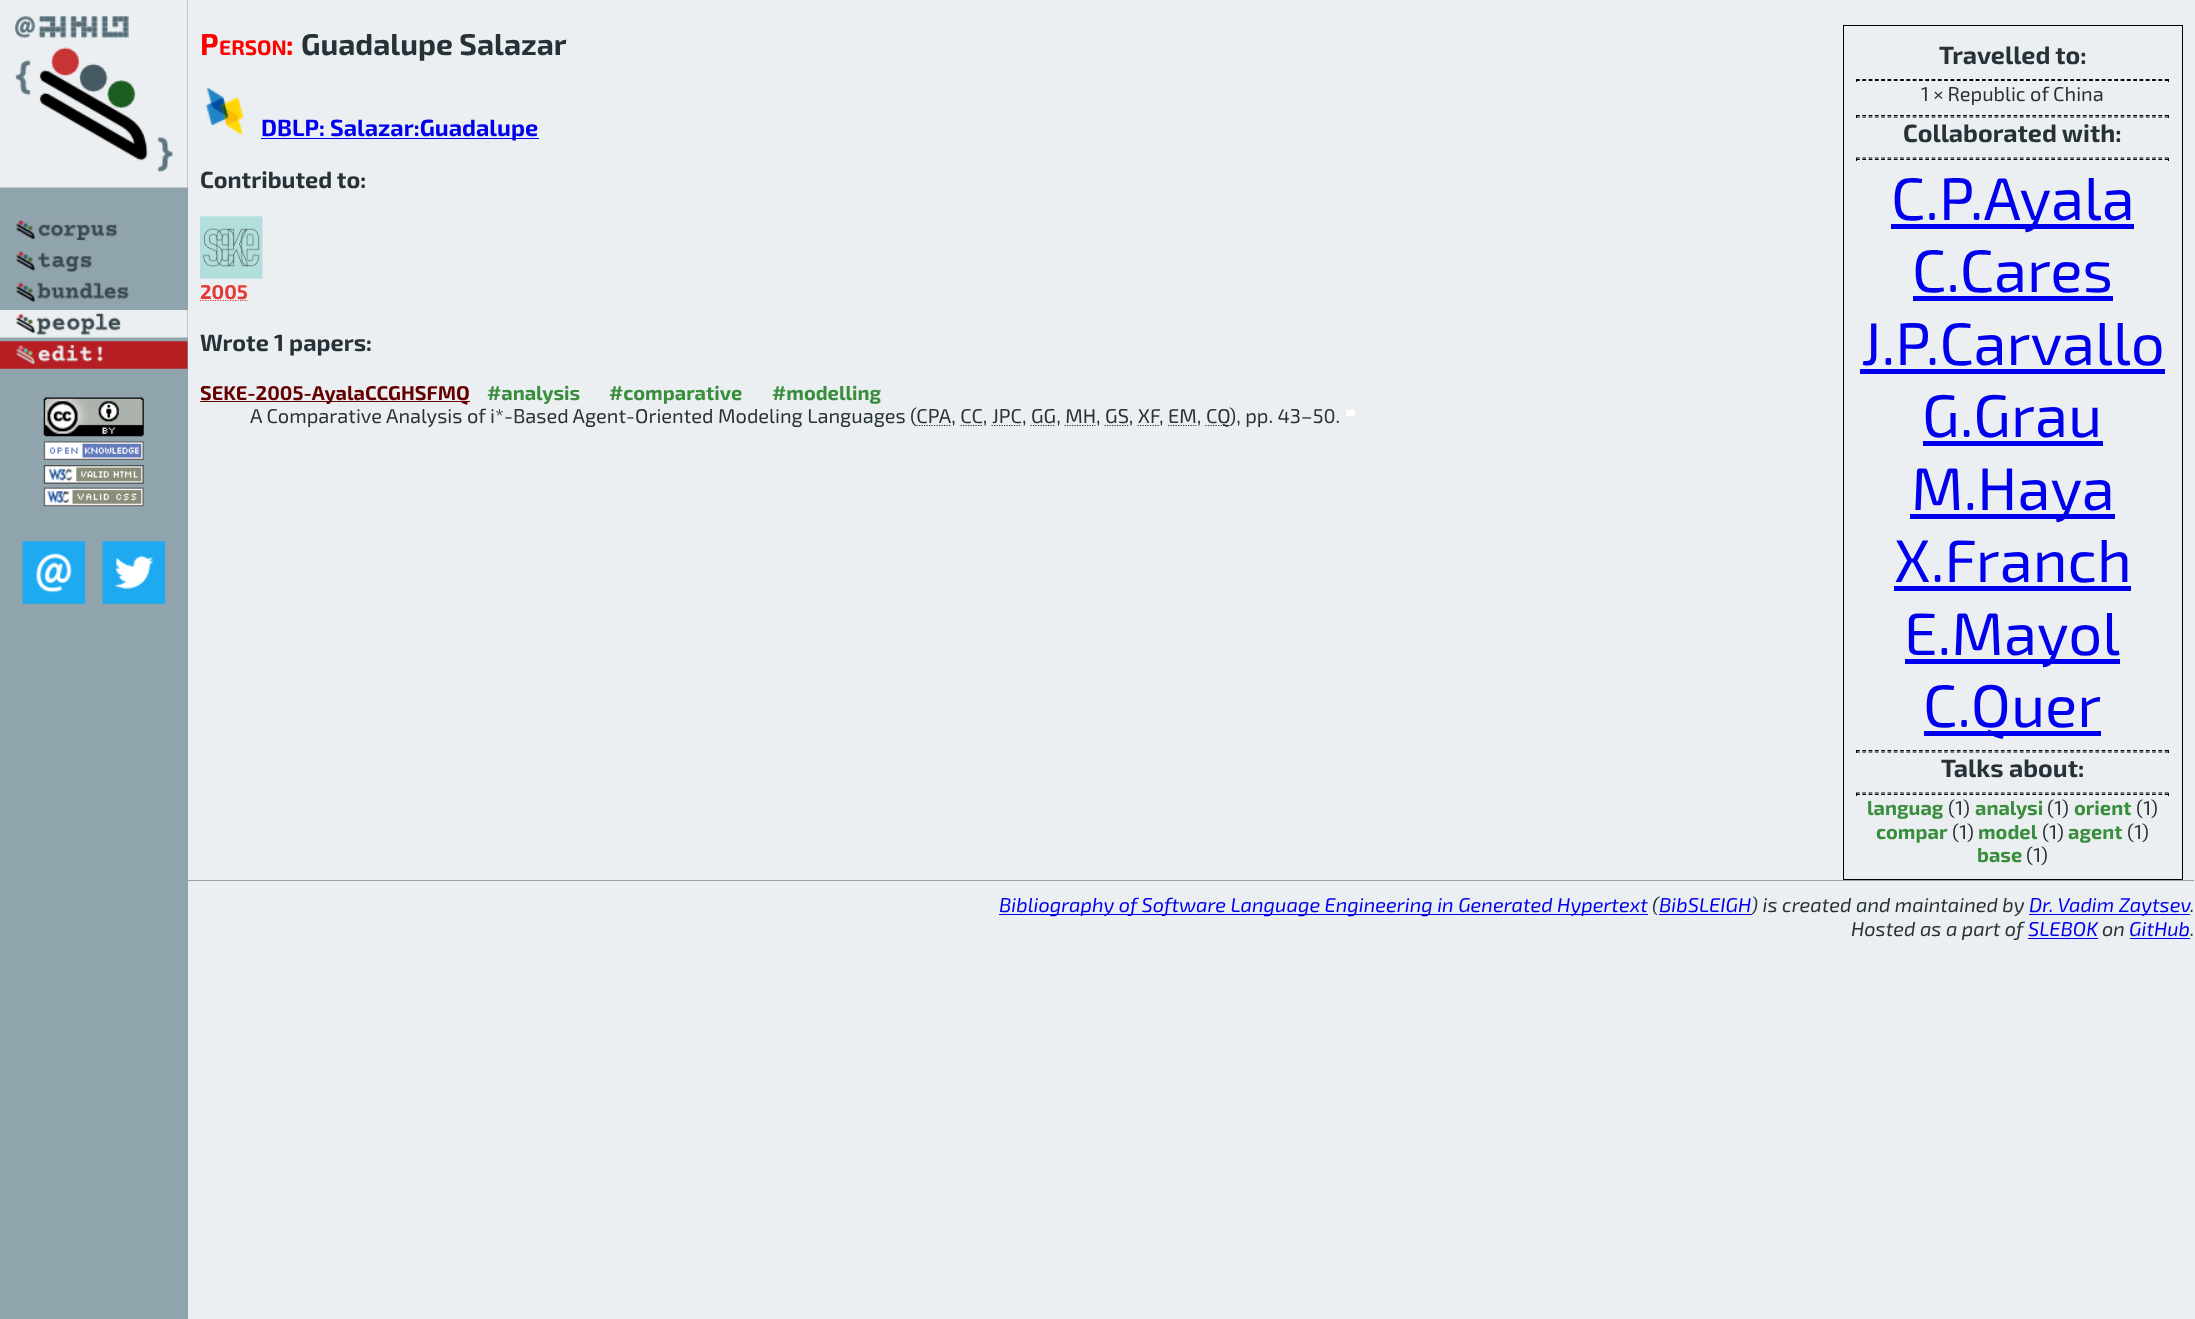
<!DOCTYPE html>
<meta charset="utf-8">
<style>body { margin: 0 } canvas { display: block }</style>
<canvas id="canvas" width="2195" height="1319"></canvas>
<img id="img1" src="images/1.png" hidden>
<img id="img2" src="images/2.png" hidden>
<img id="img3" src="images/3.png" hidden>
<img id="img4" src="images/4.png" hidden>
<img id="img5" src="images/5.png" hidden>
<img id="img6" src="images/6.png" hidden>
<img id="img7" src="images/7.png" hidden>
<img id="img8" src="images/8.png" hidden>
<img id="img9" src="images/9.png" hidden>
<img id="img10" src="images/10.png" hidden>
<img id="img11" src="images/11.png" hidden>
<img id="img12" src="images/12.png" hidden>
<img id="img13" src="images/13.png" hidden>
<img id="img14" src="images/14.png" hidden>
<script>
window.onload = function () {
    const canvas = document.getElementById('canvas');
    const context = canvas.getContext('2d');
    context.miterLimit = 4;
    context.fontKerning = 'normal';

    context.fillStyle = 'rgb(236, 239, 241)';
    context.fillRect(0, 0, 2195, 1319);
    context.fillStyle = 'rgb(144, 164, 174)';
    context.fillRect(0, 0, 188, 1319);
    context.drawImage(document.getElementById('img1'), 0, 0, 188, 188);
    context.drawImage(document.getElementById('img2'), 16, 219, 102, 22);
    context.drawImage(document.getElementById('img3'), 16, 251, 76, 22);
    context.drawImage(document.getElementById('img4'), 16, 282, 113, 21);
    context.drawImage(document.getElementById('img5'), 0, 310, 188, 28);
    context.drawImage(document.getElementById('img6'), 0, 341, 188, 28);
    context.drawImage(document.getElementById('img7'), 43, 397, 101, 40);
    context.drawImage(document.getElementById('img8'), 43, 441, 101, 19);
    context.drawImage(document.getElementById('img9'), 43, 465, 101, 19);
    context.drawImage(document.getElementById('img10'), 43, 487, 101, 20);
    context.drawImage(document.getElementById('img11'), 22, 541, 63, 63);
    context.drawImage(document.getElementById('img12'), 102, 541, 63, 63);
    context.strokeStyle = 'rgb(0, 0, 0)';
    context.strokeRect(1843.5, 25.5, 339, 854);
    context.beginPath();
    context.moveTo(1856, 79.5);
    context.lineTo(2169, 79.5);
    context.lineWidth = 1.2;
    context.setLineDash([3.75, 2.55]);
    context.stroke();
    context.fillStyle = 'rgb(0, 0, 0)';
    context.fillRect(2168, 79, 1, 3);
    context.beginPath();
    context.moveTo(1856, 80.5);
    context.lineTo(2169, 80.5);
    context.stroke();
    context.fillRect(1856, 79, 1, 3);
    context.beginPath();
    context.moveTo(1856, 115.5);
    context.lineTo(2169, 115.5);
    context.stroke();
    context.fillRect(2168, 115, 1, 3);
    context.beginPath();
    context.moveTo(1856, 117);
    context.lineTo(2169, 117);
    context.stroke();
    context.fillRect(1856, 115, 1, 3);
    context.beginPath();
    context.moveTo(1856, 158);
    context.lineTo(2169, 158);
    context.stroke();
    context.fillRect(2168, 158, 1, 3);
    context.beginPath();
    context.moveTo(1856, 159.5);
    context.lineTo(2169, 159.5);
    context.stroke();
    context.fillRect(1856, 158, 1, 3);
    context.fillStyle = 'rgb(0, 0, 238)';
    context.fillRect(1891, 224, 243, 5);
    context.fillRect(1913, 296, 200, 5);
    context.fillRect(1860, 369, 305, 5);
    context.fillRect(1923, 441, 180, 5);
    context.fillRect(1910, 514, 205, 5);
    context.fillRect(1894, 586, 237, 5);
    context.fillRect(1905, 659, 215, 5);
    context.fillRect(1924, 731, 177, 5);
    context.beginPath();
    context.moveTo(1856, 750.5);
    context.lineTo(2169, 750.5);
    context.stroke();
    context.fillStyle = 'rgb(0, 0, 0)';
    context.fillRect(2168, 750, 1, 3);
    context.beginPath();
    context.moveTo(1856, 752);
    context.lineTo(2169, 752);
    context.stroke();
    context.fillRect(1856, 750, 1, 3);
    context.beginPath();
    context.moveTo(1856, 793);
    context.lineTo(2169, 793);
    context.stroke();
    context.fillRect(2168, 793, 1, 3);
    context.beginPath();
    context.moveTo(1856, 794.5);
    context.lineTo(2169, 794.5);
    context.stroke();
    context.fillRect(1856, 793, 1, 3);
    context.drawImage(document.getElementById('img13'), 206, 87, 38, 49);
    context.fillStyle = 'rgb(0, 0, 238)';
    context.fillRect(261, 138, 278, 1);
    context.drawImage(document.getElementById('img14'), 200, 216, 63, 63);
    context.beginPath();
    context.moveTo(200, 300.5);
    context.lineTo(248, 300.5);
    context.strokeStyle = 'rgb(229, 57, 53)';
    context.setLineDash([1.25, 1.25]);
    context.stroke();
    context.fillStyle = 'rgb(102, 0, 0)';
    context.fillRect(200, 401, 270, 1);
    context.beginPath();
    context.moveTo(916.5, 425.5);
    context.lineTo(951.5, 425.5);
    context.strokeStyle = 'rgb(38, 50, 56)';
    context.stroke();
    context.beginPath();
    context.moveTo(960.5, 425.5);
    context.lineTo(983, 425.5);
    context.moveTo(991.5, 425.5);
    context.lineTo(1021.5, 425.5);
    context.stroke();
    context.beginPath();
    context.moveTo(1030.5, 425.5);
    context.lineTo(1055.5, 425.5);
    context.stroke();
    context.beginPath();
    context.moveTo(1064.5, 425.5);
    context.lineTo(1095.5, 425.5);
    context.stroke();
    context.beginPath();
    context.moveTo(1104.5, 425.5);
    context.lineTo(1128.5, 425.5);
    context.moveTo(1137.5, 425.5);
    context.lineTo(1159, 425.5);
    context.stroke();
    context.beginPath();
    context.moveTo(1168, 425.5);
    context.lineTo(1196.5, 425.5);
    context.moveTo(1205.5, 425.5);
    context.lineTo(1229.5, 425.5);
    context.stroke();
    context.fillStyle = 'rgb(255, 255, 255)';
    context.fillRect(1346, 410, 9, 6);
    context.fillStyle = 'rgb(159, 159, 159)';
    context.fillRect(188, 880, 2007, 1);
    context.fillStyle = 'rgb(238, 238, 238)';
    context.fillRect(2194, 880, 1, 3);
    context.fillRect(188, 881, 2007, 1);
    context.fillStyle = 'rgb(0, 0, 238)';
    context.fillRect(999, 914, 649, 1);
    context.fillRect(2029, 914, 161, 1);
    context.fillRect(2028, 938, 70, 1);
    context.fillRect(2130, 938, 60, 1);
    context.font = 'bold 30px "Exo 2"';
    context.fillStyle = 'rgb(255, 0, 0)';
    context.fillText('P', 200, 55);
    context.font = 'bold 21px "Exo 2"';
    context.fillText('ERSON', 219, 55);
    context.font = 'bold 30px "Exo 2"';
    context.fillText(':', 286, 55);
    context.fillStyle = 'rgb(38, 50, 56)';
    context.fillText('Guadalupe Salazar', 301, 55);
    context.font = 'bold 25px "Exo 2"';
    context.fillText('Travelled to:', 1939, 64);
    context.font = '20px "Exo 2"';
    context.fillText('1 × Republic of China', 1921, 101);
    context.font = 'bold 25px "Exo 2"';
    context.fillText('Collaborated with:', 1903, 142);
    context.font = '60px "Exo 2"';
    context.fillStyle = 'rgb(0, 0, 238)';
    context.fillText('C.P.Ayala', 1891, 220);
    context.fillText('C.Cares', 1912, 292);
    context.fillText('J.P.Carvallo', 1861, 365);
    context.fillText('G.Grau', 1922, 437);
    context.fillText('M.Haya', 1911, 510);
    context.fillText('X.Franch', 1894, 582);
    context.fillText('E.Mayol', 1904, 655);
    context.fillText('C.Quer', 1923, 727);
    context.font = 'bold 25px "Exo 2"';
    context.fillStyle = 'rgb(38, 50, 56)';
    context.fillText('Talks about:', 1941, 777);
    context.font = 'bold 20px "Exo 2"';
    context.fillStyle = 'rgb(56, 142, 60)';
    context.fillText('languag', 1867, 815);
    context.font = '20px "Exo 2"';
    context.fillStyle = 'rgb(38, 50, 56)';
    context.fillText('(1)', 1948, 815);
    context.font = 'bold 20px "Exo 2"';
    context.fillStyle = 'rgb(56, 142, 60)';
    context.fillText('analysi', 1975, 815);
    context.font = '20px "Exo 2"';
    context.fillStyle = 'rgb(38, 50, 56)';
    context.fillText('(1)', 2047, 815);
    context.font = 'bold 20px "Exo 2"';
    context.fillStyle = 'rgb(56, 142, 60)';
    context.fillText('orient', 2074, 815);
    context.font = '20px "Exo 2"';
    context.fillStyle = 'rgb(38, 50, 56)';
    context.fillText('(1)', 2136, 815);
    context.font = 'bold 20px "Exo 2"';
    context.fillStyle = 'rgb(56, 142, 60)';
    context.fillText('compar', 1876, 839);
    context.font = '20px "Exo 2"';
    context.fillStyle = 'rgb(38, 50, 56)';
    context.fillText('(1)', 1952, 839);
    context.font = 'bold 20px "Exo 2"';
    context.fillStyle = 'rgb(56, 142, 60)';
    context.fillText('model', 1978, 839);
    context.font = '20px "Exo 2"';
    context.fillStyle = 'rgb(38, 50, 56)';
    context.fillText('(1)', 2042, 839);
    context.font = 'bold 20px "Exo 2"';
    context.fillStyle = 'rgb(56, 142, 60)';
    context.fillText('agent', 2068, 839);
    context.font = '20px "Exo 2"';
    context.fillStyle = 'rgb(38, 50, 56)';
    context.fillText('(1)', 2127, 839);
    context.font = 'bold 20px "Exo 2"';
    context.fillStyle = 'rgb(56, 142, 60)';
    context.fillText('base', 1977, 862);
    context.font = '20px "Exo 2"';
    context.fillStyle = 'rgb(38, 50, 56)';
    context.fillText('(1)', 2026, 862);
    context.font = 'bold 23.4px "Exo 2"';
    context.fillStyle = 'rgb(0, 0, 238)';
    context.fillText('DBLP: Salazar:Guadalupe', 261, 136);
    context.fillStyle = 'rgb(38, 50, 56)';
    context.fillText('Contributed to:', 200, 188);
    context.font = 'bold 20px "Exo 2"';
    context.fillStyle = 'rgb(229, 57, 53)';
    context.fillText('2005', 200, 299);
    context.font = 'bold 23.4px "Exo 2"';
    context.fillStyle = 'rgb(38, 50, 56)';
    context.fillText('Wrote 1 papers:', 200, 351);
    context.font = 'bold 20px "Exo 2"';
    context.fillStyle = 'rgb(102, 0, 0)';
    context.fillText('SEKE-2005-AyalaCCGHSFMQ', 200, 400);
    context.fillStyle = 'rgb(56, 142, 60)';
    context.fillText('#analysis', 487, 400);
    context.fillText('#comparative', 609, 400);
    context.fillText('#modelling', 772, 400);
    context.font = '20px "Exo 2"';
    context.fillStyle = 'rgb(38, 50, 56)';
    context.fillText('A Comparative Analysis of i*-Based Agent-Oriented Modeling Languages (CPA, CC,', 250, 423);
    context.fillText('JPC, GG, MH, GS, XF', 992, 423);
    context.fillText(', EM,', 1159, 423);
    context.fillText('CQ', 1206, 423);
    context.fillText('), pp. 43–50.', 1229, 423);
    context.font = 'italic 20px "Exo 2"';
    context.fillStyle = 'rgb(0, 0, 238)';
    context.fillText('Bibliography of Software Language Engineering in Generated Hypertext', 999, 912);
    context.fillStyle = 'rgb(38, 50, 56)';
    context.fillText('(', 1652, 912);
    context.fillStyle = 'rgb(0, 0, 238)';
    context.fillText('BibSLEIGH', 1659, 912);
    context.fillRect(1659, 914, 92, 1);
    context.fillStyle = 'rgb(38, 50, 56)';
    context.fillText(') is created and maintained by', 1751, 912);
    context.fillStyle = 'rgb(0, 0, 238)';
    context.fillText('Dr. Vadim Zaytsev', 2029, 912);
    context.fillStyle = 'rgb(38, 50, 56)';
    context.fillText('.', 2190, 912);
    context.fillText('Hosted as a part of', 1851, 936);
    context.fillStyle = 'rgb(0, 0, 238)';
    context.fillText('SLEBOK', 2028, 936);
    context.fillStyle = 'rgb(38, 50, 56)';
    context.fillText('on', 2102, 936);
    context.fillStyle = 'rgb(0, 0, 238)';
    context.fillText('GitHub', 2129, 936);
    context.fillStyle = 'rgb(38, 50, 56)';
    context.fillText('.', 2190, 936);
};
</script>
